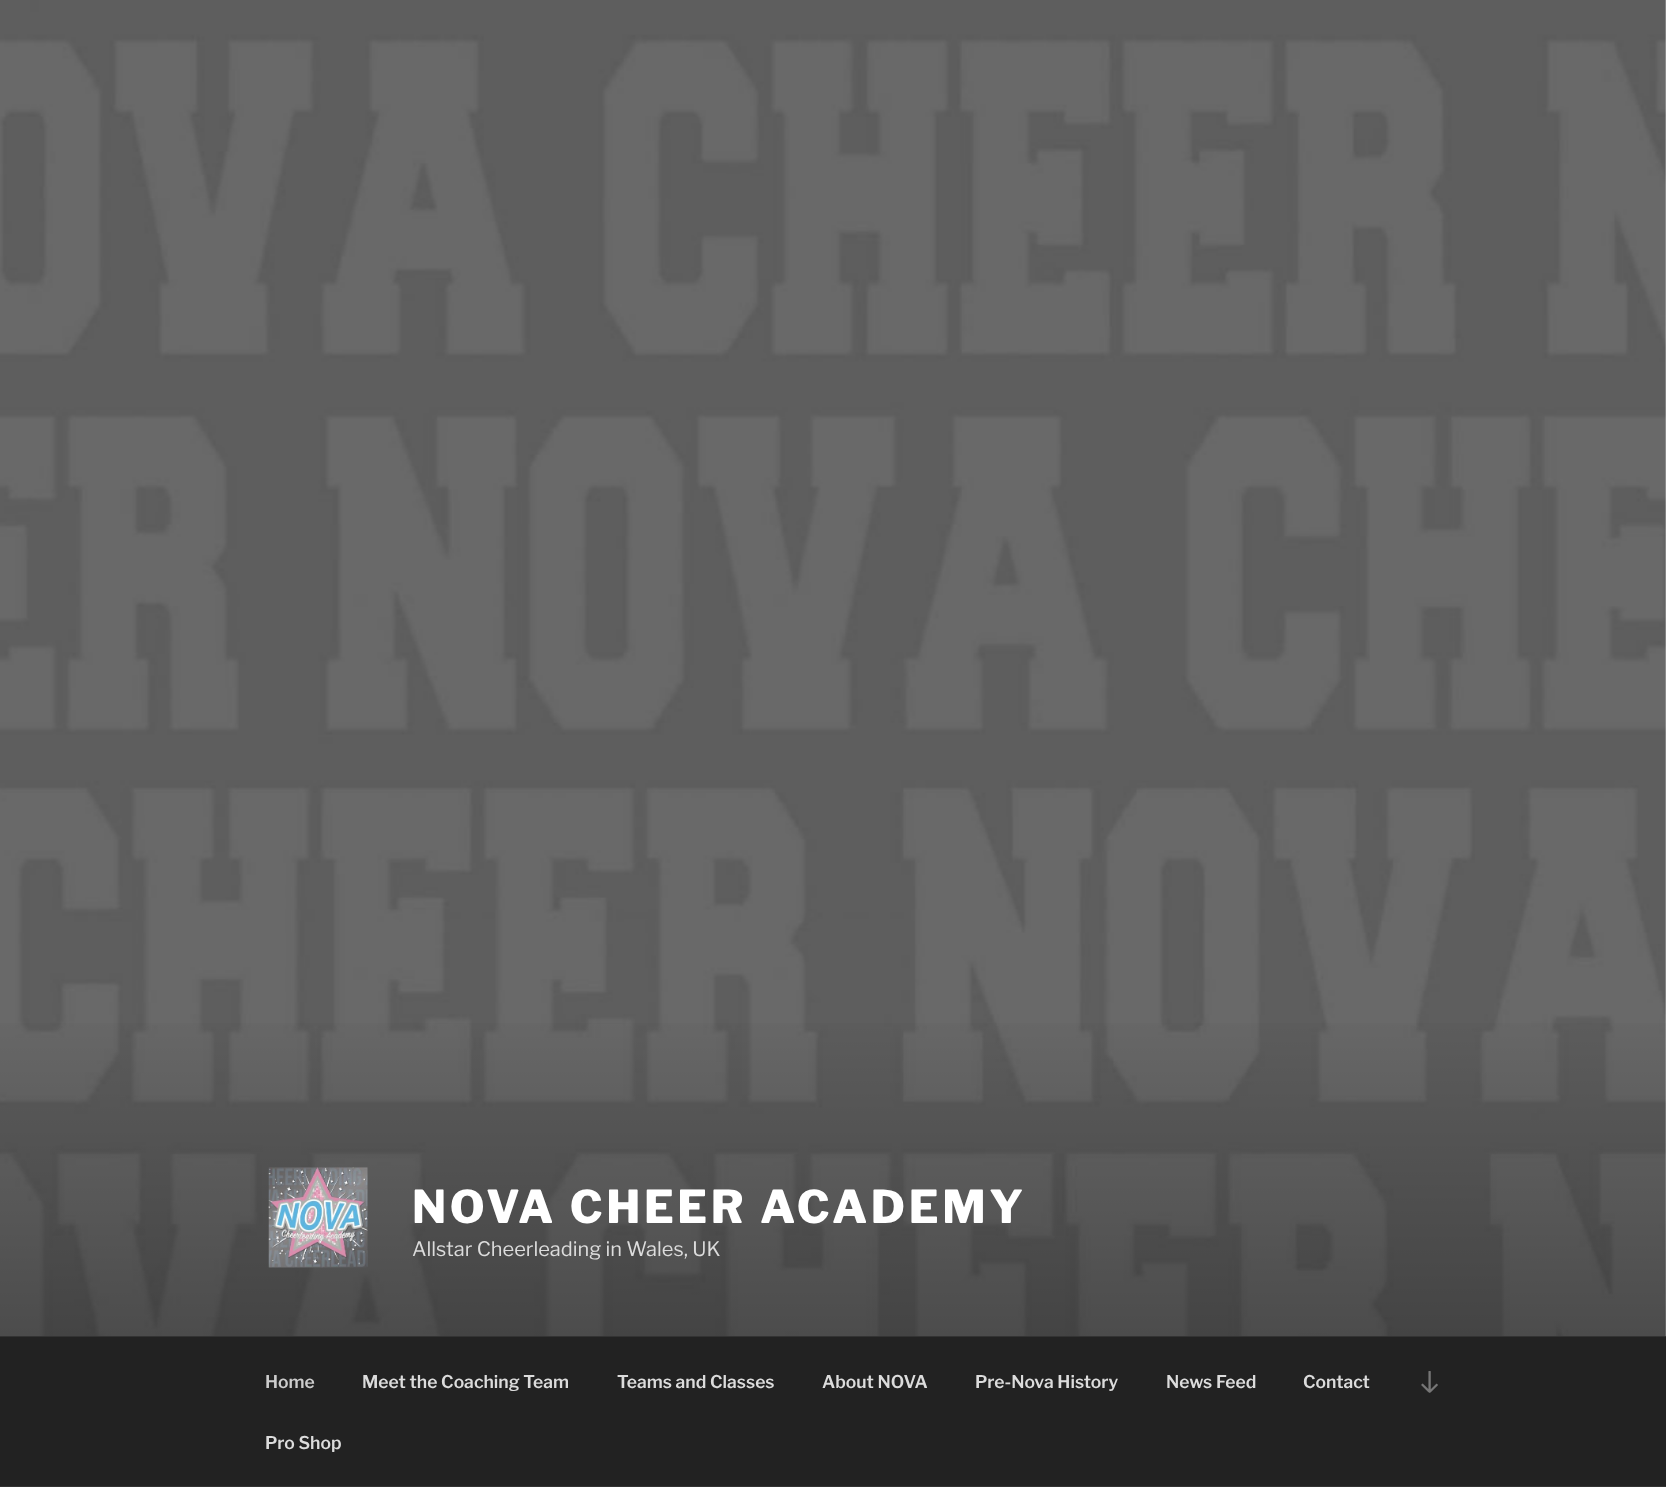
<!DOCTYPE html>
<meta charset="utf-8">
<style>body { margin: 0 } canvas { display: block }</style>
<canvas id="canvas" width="1666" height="1487"></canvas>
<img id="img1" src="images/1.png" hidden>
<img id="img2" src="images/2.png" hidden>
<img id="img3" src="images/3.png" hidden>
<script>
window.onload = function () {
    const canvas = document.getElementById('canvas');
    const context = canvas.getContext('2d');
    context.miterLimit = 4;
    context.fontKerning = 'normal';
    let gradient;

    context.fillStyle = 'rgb(255, 255, 255)';
    context.fillRect(0, 0, 1666, 1487);
    context.drawImage(document.getElementById('img1'), 0, 0, 1666, 1336);
    gradient = context.createLinearGradient(833, 996, 833, 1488);
    gradient.addColorStop(0, 'rgba(0, 0, 0, 0)');
    gradient.addColorStop(0.75, 'rgba(0, 0, 0, 0.3)');
    gradient.addColorStop(1, 'rgba(0, 0, 0, 0.3)');
    context.fillStyle = gradient;
    context.fillRect(0, 1023, 1666, 313);
    context.drawImage(document.getElementById('img2'), 268, 1167, 100, 101);
    context.fillStyle = 'rgb(34, 34, 34)';
    context.fillRect(0, 1337, 1666, 149);
    context.fillStyle = 'rgb(51, 51, 51)';
    context.fillRect(0, 1336, 1666, 1);
    context.fillRect(0, 1486, 1666, 1);
    context.drawImage(document.getElementById('img3'), 1421, 1371, 17, 22);
    context.letterSpacing = '3.6px';
    context.font = '100 45px Libre Franklin';
    context.fillStyle = 'rgb(255, 255, 255)';
    context.fillText('NOVA CHEER ACADEMY', 412, 1223);
    context.letterSpacing = '0px';
    context.font = '100 20px "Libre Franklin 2"';
    context.fillStyle = 'rgb(220, 220, 220)';
    context.fillText('Allstar Cheerleading in Wales, UK', 412, 1256);
    context.font = '100 17.5px "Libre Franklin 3"';
    context.fillStyle = 'rgb(204, 204, 204)';
    context.fillText('Home', 265, 1388);
    context.fillStyle = 'rgb(220, 220, 220)';
    context.fillText('Meet the Coaching Team', 362, 1388);
    context.fillText('Teams and Classes', 617, 1388);
    context.fillText('About NOVA', 822, 1388);
    context.fillText('Pre-Nova History', 975, 1388);
    context.fillText('News Feed', 1166, 1388);
    context.fillText('Contact', 1303, 1388);
    context.fillText('Pro Shop', 265, 1449);
};
</script>
